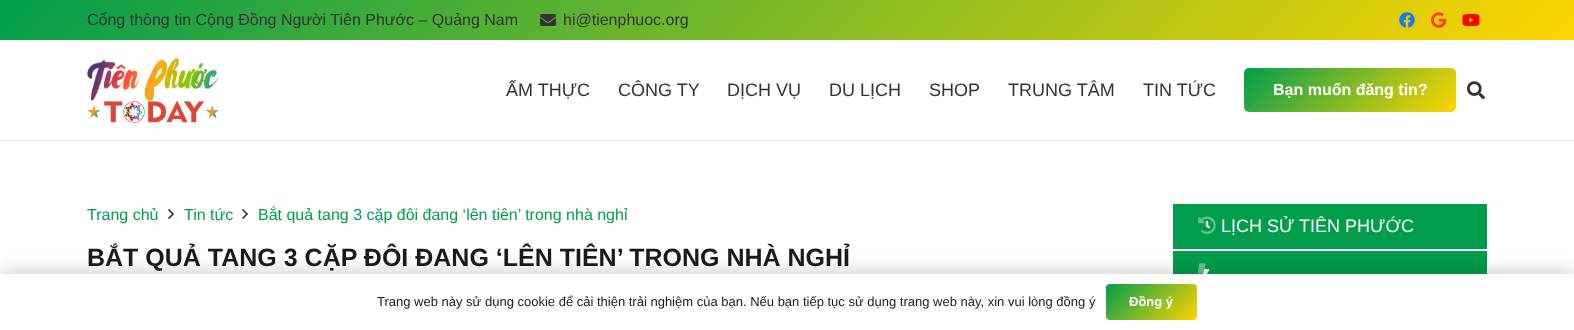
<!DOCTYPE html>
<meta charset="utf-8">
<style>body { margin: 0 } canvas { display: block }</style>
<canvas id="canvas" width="1574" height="330"></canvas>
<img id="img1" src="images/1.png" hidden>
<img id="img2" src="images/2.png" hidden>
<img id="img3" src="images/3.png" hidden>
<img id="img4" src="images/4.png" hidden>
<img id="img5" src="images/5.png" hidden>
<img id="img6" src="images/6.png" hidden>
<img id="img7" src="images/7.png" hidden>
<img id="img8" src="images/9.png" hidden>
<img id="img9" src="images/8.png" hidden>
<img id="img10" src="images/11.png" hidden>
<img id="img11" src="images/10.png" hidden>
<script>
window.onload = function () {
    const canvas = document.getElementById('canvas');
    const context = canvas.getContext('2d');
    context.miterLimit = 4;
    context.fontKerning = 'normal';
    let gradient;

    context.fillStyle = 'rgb(255, 255, 255)';
    context.fillRect(0, 0, 1574, 330);
    gradient = context.createLinearGradient(383, -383, 1191, 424);
    gradient.addColorStop(0, 'rgb(0, 158, 76)');
    gradient.addColorStop(1, 'rgb(255, 213, 0)');
    context.fillStyle = gradient;
    context.fillRect(0, 0, 1574, 40);
    context.drawImage(document.getElementById('img1'), 540, 14, 16, 12);
    context.drawImage(document.getElementById('img2'), 1399, 12, 16, 16);
    context.drawImage(document.getElementById('img3'), 1431, 12, 16, 16);
    context.drawImage(document.getElementById('img4'), 1462, 14, 18, 12);
    context.fillStyle = 'rgb(235, 235, 235)';
    context.fillRect(0, 140, 1574, 1);
    context.drawImage(document.getElementById('img5'), 87, 57, 132, 66);
    gradient = context.createLinearGradient(1286, 26, 1414, 154);
    gradient.addColorStop(0, 'rgb(0, 158, 76)');
    gradient.addColorStop(1, 'rgb(255, 213, 0)');
    context.fillStyle = gradient;
    context.beginPath();
    context.roundRect(1244, 68, 212, 44, 5);
    context.fill();
    context.drawImage(document.getElementById('img6'), 1467, 81, 18, 19);
    context.drawImage(document.getElementById('img7'), 168, 209, 6, 10);
    context.drawImage(document.getElementById('img7'), 242, 209, 6, 10);
    context.fillStyle = 'rgb(0, 158, 76)';
    context.fillRect(1173, 204, 314, 45);
    context.drawImage(document.getElementById('img8'), 1205, 220, 5, 9);
    context.drawImage(document.getElementById('img9'), 1198, 216, 18, 18);
    context.fillRect(1173, 251, 314, 23);
    context.drawImage(document.getElementById('img10'), 1202, 268, 8, 6);
    context.drawImage(document.getElementById('img11'), 1198, 263, 8, 11);
    context.fillStyle = 'rgba(0, 0, 0, 0.15)';
    context.filter = 'blur(7.5px)';
    context.beginPath();
    context.rect(0, 269, 1574, 56);
    context.fill();
    context.filter = 'none';
    context.fillStyle = 'rgb(255, 255, 255)';
    context.fillRect(0, 274, 1574, 56);
    gradient = context.createLinearGradient(1120, 270, 1183, 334);
    gradient.addColorStop(0, 'rgb(0, 158, 76)');
    gradient.addColorStop(1, 'rgb(255, 213, 0)');
    context.fillStyle = gradient;
    context.beginPath();
    context.roundRect(1106, 284, 91, 36, 4);
    context.fill();
    context.font = '16px Liberation Sans';
    context.fillStyle = 'rgb(51, 51, 51)';
    context.fillText('Cổng thông tin Cộng Đồng Người Tiên Phước – Quảng Nam', 87, 25);
    context.fillText('hi@tienphuoc.org', 563, 25);
    context.font = '18px Liberation Sans';
    context.fillText('ẨM THỰC', 506, 96);
    context.fillText('CÔNG TY', 618, 96);
    context.fillText('DỊCH VỤ', 727, 96);
    context.fillText('DU LỊCH', 829, 96);
    context.fillText('SHOP', 929, 96);
    context.fillText('TRUNG TÂM', 1008, 96);
    context.fillText('TIN TỨC', 1143, 96);
    context.font = 'bold 16px Liberation Sans';
    context.fillStyle = 'rgb(255, 255, 255)';
    context.fillText('Bạn muốn đăng tin?', 1273, 95);
    context.font = '16px Liberation Sans';
    context.fillStyle = 'rgb(0, 158, 76)';
    context.fillText('Trang chủ', 87, 220);
    context.fillText('Tin tức', 184, 220);
    context.fillText('Bắt quả tang 3 cặp đôi đang ‘lên tiên’ trong nhà nghỉ', 258, 220);
    context.font = 'bold 25px Liberation Sans';
    context.fillStyle = 'rgb(26, 26, 26)';
    context.fillText('BẮT QUẢ TANG 3 CẶP ĐÔI ĐANG ‘LÊN TIÊN’ TRONG NHÀ NGHỈ', 87, 266);
    context.font = '18px Liberation Sans';
    context.fillStyle = 'rgb(255, 255, 255)';
    context.fillText('LỊCH SỬ TIÊN PHƯỚC', 1221, 232);
    context.font = '13px Liberation Sans';
    context.fillStyle = 'rgb(26, 26, 26)';
    context.fillText('Trang web này sử dụng cookie để cải thiện trải nghiệm của bạn. Nếu bạn tiếp tục sử dụng trang web này, xin vui lòng đồng ý', 377, 306);
    context.font = 'bold 13px Liberation Sans';
    context.fillStyle = 'rgb(255, 255, 255)';
    context.fillText('Đồng ý', 1129, 306);
};
</script>
